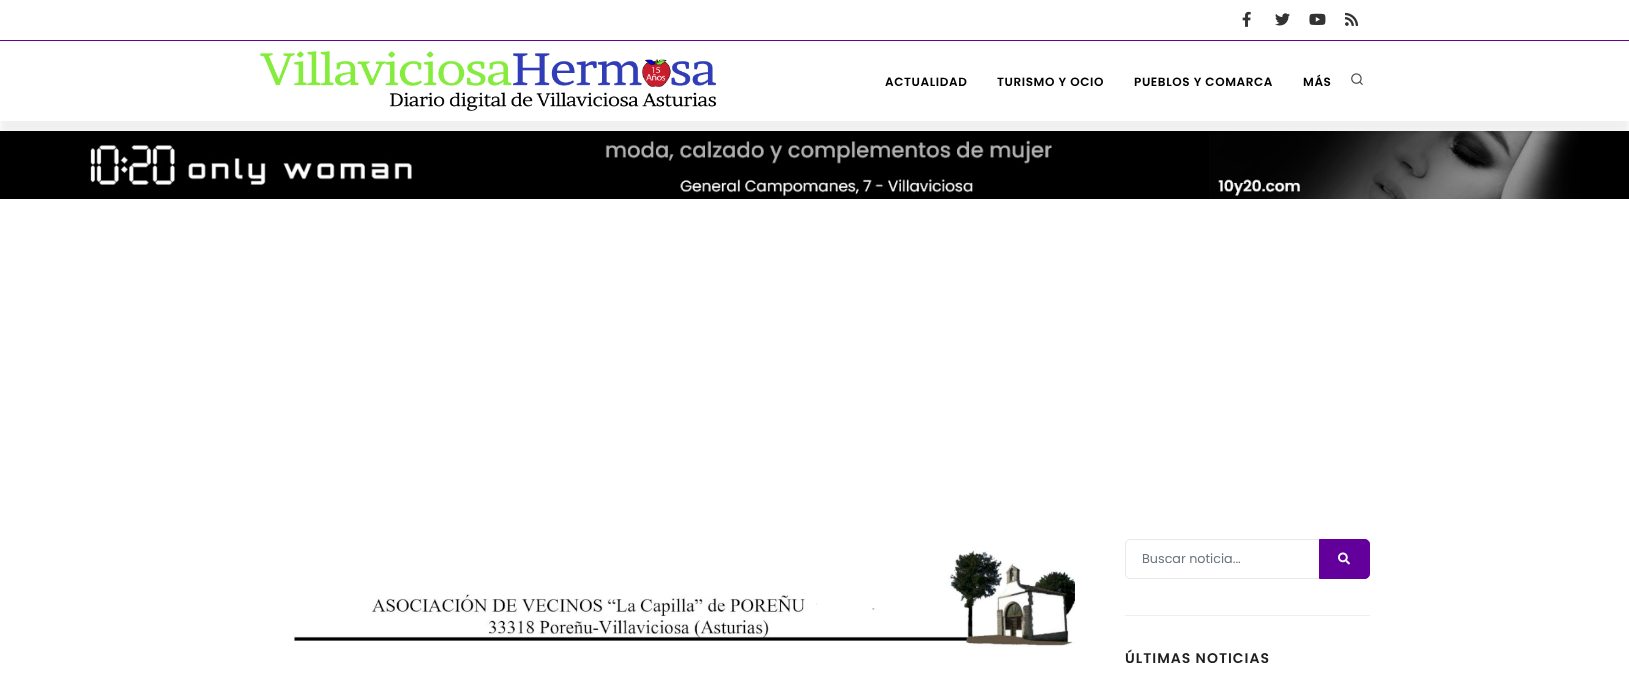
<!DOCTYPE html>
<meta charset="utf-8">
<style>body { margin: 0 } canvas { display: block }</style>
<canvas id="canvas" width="1629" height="679"></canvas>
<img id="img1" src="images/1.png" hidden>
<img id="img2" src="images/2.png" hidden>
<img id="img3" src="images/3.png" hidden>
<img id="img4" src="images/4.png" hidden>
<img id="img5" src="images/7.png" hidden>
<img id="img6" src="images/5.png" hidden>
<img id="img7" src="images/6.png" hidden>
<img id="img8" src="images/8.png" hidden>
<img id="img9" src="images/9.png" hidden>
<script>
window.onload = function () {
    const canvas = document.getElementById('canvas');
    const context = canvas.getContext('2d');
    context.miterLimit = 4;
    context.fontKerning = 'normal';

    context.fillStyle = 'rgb(255, 255, 255)';
    context.fillRect(0, 0, 1629, 679);
    context.fillStyle = 'rgb(99, 0, 156)';
    context.fillRect(0, 40, 1629, 1);
    context.drawImage(document.getElementById('img1'), 1242, 11, 9, 16);
    context.drawImage(document.getElementById('img2'), 1275, 13, 15, 13);
    context.drawImage(document.getElementById('img3'), 1309, 13, 17, 12);
    context.drawImage(document.getElementById('img4'), 1345, 12, 14, 14);
    context.drawImage(document.getElementById('img5'), 0, 131, 1629, 68);
    context.save();
    context.beginPath();
    context.rect(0, 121, 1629, 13);
    context.clip();
    context.fillStyle = 'rgba(0, 0, 0, 0.06)';
    context.filter = 'blur(3px)';
    context.beginPath();
    context.rect(0, 53, 1629, 80);
    context.fill();
    context.filter = 'none';
    context.restore();
    context.drawImage(document.getElementById('img6'), 260, 51, 456, 60);
    context.drawImage(document.getElementById('img7'), 1351, 73, 12, 12);
    context.drawImage(document.getElementById('img8'), 293, 550, 782, 97);
    context.fillStyle = 'rgb(238, 238, 238)';
    context.fillRect(1125, 615, 245, 1);
    context.beginPath();
    context.roundRect(1125.5, 539.5, 198, 39, [4.5, 0, 0, 4.5]);
    context.strokeStyle = 'rgb(230, 232, 235)';
    context.stroke();
    context.fillStyle = 'rgb(99, 0, 156)';
    context.beginPath();
    context.roundRect(1319.5, 539.5, 50, 39, [0, 4.5, 4.5, 0]);
    context.fill();
    context.strokeStyle = 'rgb(99, 0, 156)';
    context.stroke();
    context.drawImage(document.getElementById('img9'), 1338, 552, 12, 13);
    context.letterSpacing = '0.6px';
    context.font = '600 12px Poppins';
    context.fillStyle = 'rgb(0, 0, 0)';
    context.fillText('ACTUALIDAD', 885, 86);
    context.fillText('TURISMO Y OCIO', 997, 86);
    context.fillText('PUEBLOS Y COMARCA', 1134, 86);
    context.fillText('MÁS', 1303, 86);
    context.letterSpacing = '0px';
    context.font = '12.75px Poppins';
    context.fillStyle = 'rgb(108, 117, 125)';
    context.fillText('Buscar noticia...', 1142, 563);
    context.letterSpacing = '1px';
    context.font = '600 14px Poppins';
    context.fillStyle = 'rgb(31, 31, 31)';
    context.fillText('ÚLTIMAS NOTICIAS', 1125, 663);
};
</script>
